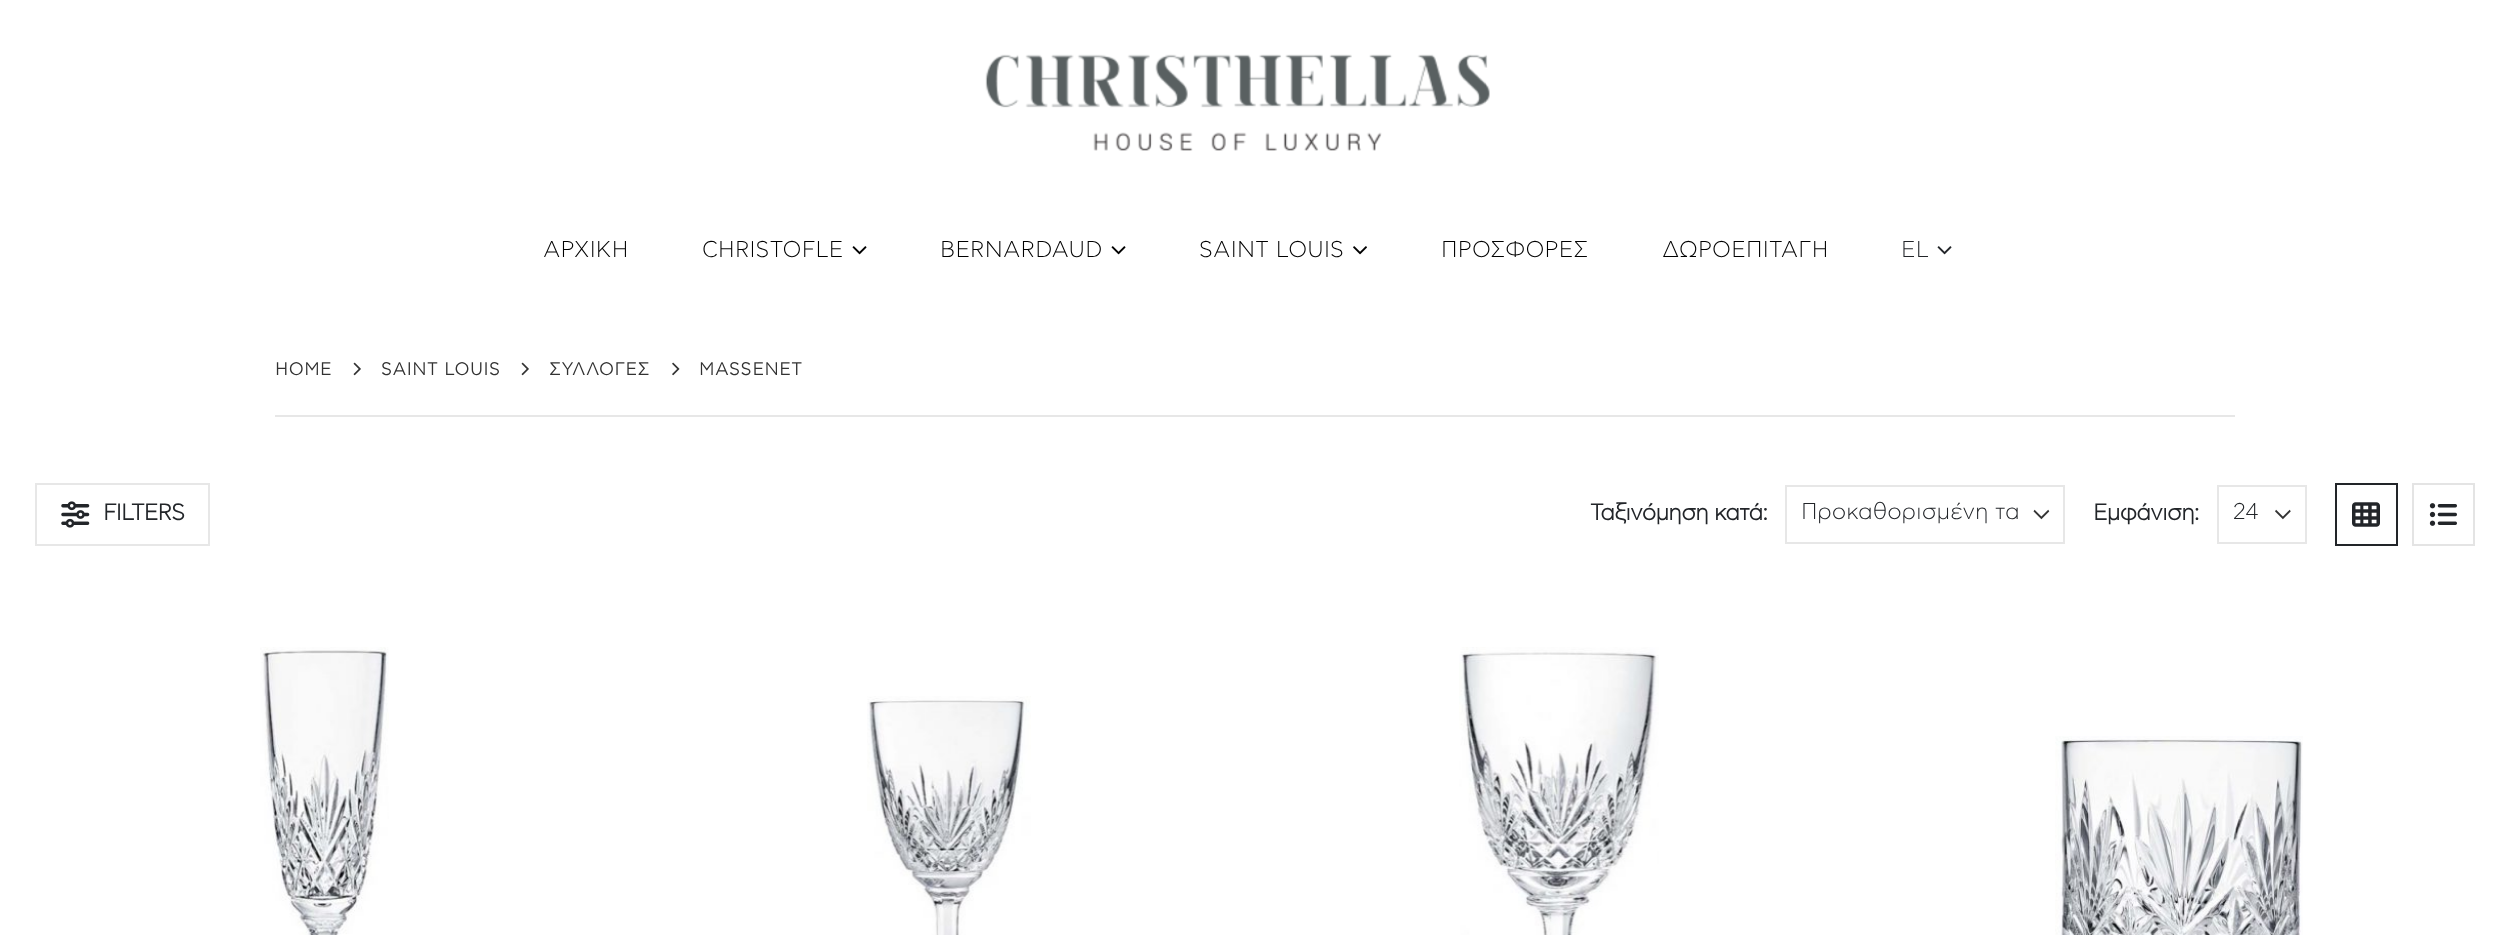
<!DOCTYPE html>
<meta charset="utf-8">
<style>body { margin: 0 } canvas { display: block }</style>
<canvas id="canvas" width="2509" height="935"></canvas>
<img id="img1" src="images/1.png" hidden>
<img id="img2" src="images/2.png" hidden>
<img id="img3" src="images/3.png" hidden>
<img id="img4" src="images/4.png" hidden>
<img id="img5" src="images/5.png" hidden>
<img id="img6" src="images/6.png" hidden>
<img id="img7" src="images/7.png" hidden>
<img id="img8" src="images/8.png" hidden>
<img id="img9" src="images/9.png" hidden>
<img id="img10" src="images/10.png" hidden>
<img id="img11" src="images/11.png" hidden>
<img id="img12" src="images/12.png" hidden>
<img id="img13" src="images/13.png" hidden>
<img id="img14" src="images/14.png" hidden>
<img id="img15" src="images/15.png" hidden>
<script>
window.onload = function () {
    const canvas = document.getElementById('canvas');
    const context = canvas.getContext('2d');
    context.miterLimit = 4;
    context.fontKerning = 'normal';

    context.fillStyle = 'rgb(255, 255, 255)';
    context.fillRect(0, 0, 2509, 935);
    context.drawImage(document.getElementById('img1'), 985, 54, 505, 97);
    context.drawImage(document.getElementById('img2'), 852, 246, 15, 9);
    context.drawImage(document.getElementById('img2'), 1111, 246, 15, 9);
    context.drawImage(document.getElementById('img3'), 1353, 246, 14, 9);
    context.drawImage(document.getElementById('img4'), 1937, 246, 15, 9);
    context.drawImage(document.getElementById('img5'), 353, 362, 8, 14);
    context.drawImage(document.getElementById('img5'), 521, 362, 8, 14);
    context.drawImage(document.getElementById('img6'), 672, 362, 8, 14);
    context.fillStyle = 'rgb(231, 231, 231)';
    context.fillRect(275, 415, 1960, 2);
    context.strokeStyle = 'rgb(231, 231, 231)';
    context.lineWidth = 2;
    context.strokeRect(36, 484, 173, 61);
    context.drawImage(document.getElementById('img7'), 61, 501, 29, 27);
    context.drawImage(document.getElementById('img8'), 2033, 509, 17, 11);
    context.strokeRect(1786, 486, 278, 57);
    context.drawImage(document.getElementById('img9'), 2275, 509, 16, 11);
    context.strokeRect(2218, 486, 88, 57);
    context.strokeStyle = 'rgb(34, 37, 41)';
    context.strokeRect(2336, 484, 61, 61);
    context.drawImage(document.getElementById('img10'), 2352, 502, 28, 25);
    context.strokeStyle = 'rgb(228, 228, 228)';
    context.strokeRect(2413, 484, 61, 61);
    context.drawImage(document.getElementById('img11'), 2429, 503, 28, 23);
    context.drawImage(document.getElementById('img12'), 260, 647, 129, 288);
    context.drawImage(document.getElementById('img13'), 867, 696, 164, 239);
    context.drawImage(document.getElementById('img14'), 1459, 647, 200, 288);
    context.drawImage(document.getElementById('img15'), 2055, 736, 248, 199);
    context.letterSpacing = '0.25px';
    context.font = '300 22.75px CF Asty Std';
    context.fillStyle = 'rgb(0, 0, 0)';
    context.fillText('ΑΡΧΙΚΗ', 543, 257);
    context.fillText('CHRISTOFLE', 702, 257);
    context.fillText('BERNARDAUD', 940, 257);
    context.fillText('SAINT LOUIS', 1199, 257);
    context.fillText('ΠΡΟΣΦΟΡΕΣ', 1441, 257);
    context.fillText('ΔΩΡΟΕΠΙΤΑΓΗ', 1662, 257);
    context.fillStyle = 'rgb(34, 37, 41)';
    context.fillText('EL', 1901, 257);
    context.letterSpacing = '0.9px';
    context.font = 'bold 17.5px CF Asty Std';
    context.fillStyle = 'rgb(50, 50, 50)';
    context.fillText('HOME', 275, 375);
    context.fillText('SAINT LOUIS', 381, 375);
    context.fillText('ΣΥΛΛΟΓΕΣ', 549, 375);
    context.fillText('MASSENET', 699, 375);
    context.letterSpacing = '-0.7px';
    context.font = 'bold 22.75px CF Asty Std';
    context.fillStyle = 'rgb(34, 37, 41)';
    context.fillText('FILTERS', 103, 520);
    context.fillText('Ταξινόμηση κατά:', 1590, 520);
    context.letterSpacing = '0px';
    context.font = '300 22.75px CF Asty Std';
    context.fillText('Προκαθορισμένη τα', 1801, 519);
    context.letterSpacing = '-0.7px';
    context.font = 'bold 22.75px CF Asty Std';
    context.fillText('Εμφάνιση:', 2093, 520);
    context.letterSpacing = '0px';
    context.font = '300 22.75px CF Asty Std';
    context.fillText('24', 2233, 519);
};
</script>
